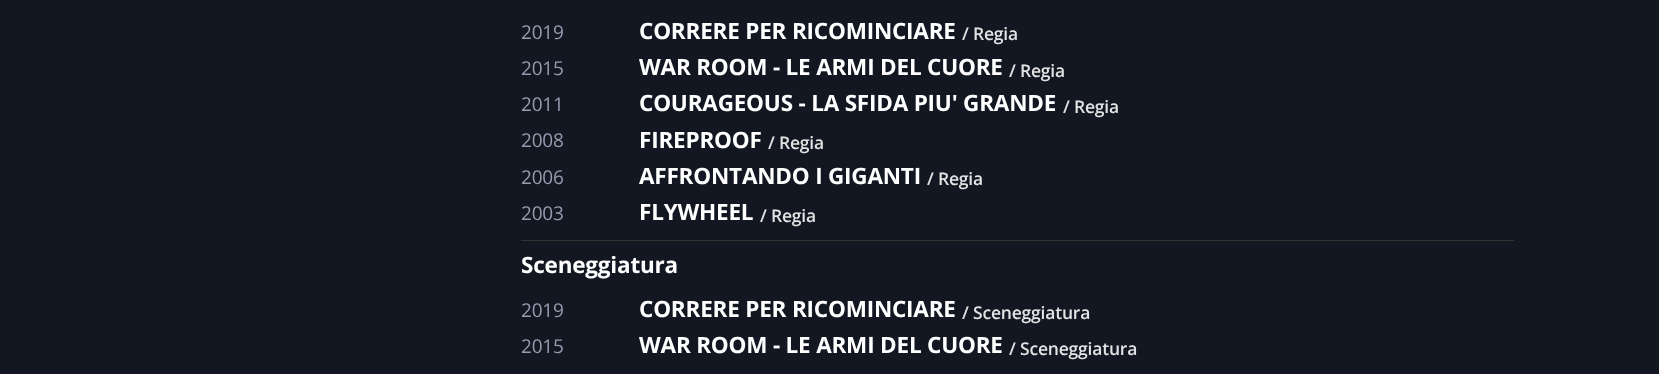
<!DOCTYPE html>
<meta charset="utf-8">
<style>body { margin: 0 } canvas { display: block }</style>
<canvas id="canvas" width="1659" height="374"></canvas>
<script>
window.onload = function () {
    const canvas = document.getElementById('canvas');
    const context = canvas.getContext('2d');
    context.miterLimit = 4;
    context.fontKerning = 'normal';

    context.fillStyle = 'rgb(19, 23, 34)';
    context.fillRect(0, 0, 1659, 374);
    context.fillStyle = 'rgb(51, 51, 51)';
    context.fillRect(521, 240, 993, 1);
    context.letterSpacing = '-0.2px';
    context.font = '19px Open Sans';
    context.fillStyle = 'rgb(148, 156, 176)';
    context.fillText('2019', 521, 39);
    context.font = 'bold 22.5px Open Sans';
    context.fillStyle = 'rgb(255, 255, 255)';
    context.fillText('CORRERE PER RICOMINCIARE', 639, 39);
    context.font = '600 17.5px Open Sans';
    context.fillStyle = 'rgb(227, 227, 227)';
    context.fillText('/ Regia', 962, 40);
    context.font = '19px Open Sans';
    context.fillStyle = 'rgb(148, 156, 176)';
    context.fillText('2015', 521, 75);
    context.font = 'bold 22.5px Open Sans';
    context.fillStyle = 'rgb(255, 255, 255)';
    context.fillText('WAR ROOM - LE ARMI DEL CUORE', 639, 75);
    context.font = '600 17.5px Open Sans';
    context.fillStyle = 'rgb(227, 227, 227)';
    context.fillText('/ Regia', 1009, 77);
    context.font = '19px Open Sans';
    context.fillStyle = 'rgb(148, 156, 176)';
    context.fillText('2011', 521, 111);
    context.font = 'bold 22.5px Open Sans';
    context.fillStyle = 'rgb(255, 255, 255)';
    context.fillText('COURAGEOUS - LA SFIDA PIU\' GRANDE', 639, 111);
    context.font = '600 17.5px Open Sans';
    context.fillStyle = 'rgb(227, 227, 227)';
    context.fillText('/ Regia', 1063, 113);
    context.font = '19px Open Sans';
    context.fillStyle = 'rgb(148, 156, 176)';
    context.fillText('2008', 521, 147);
    context.font = 'bold 22.5px Open Sans';
    context.fillStyle = 'rgb(255, 255, 255)';
    context.fillText('FIREPROOF', 639, 148);
    context.font = '600 17.5px Open Sans';
    context.fillStyle = 'rgb(227, 227, 227)';
    context.fillText('/ Regia', 768, 149);
    context.font = '19px Open Sans';
    context.fillStyle = 'rgb(148, 156, 176)';
    context.fillText('2006', 521, 184);
    context.font = 'bold 22.5px Open Sans';
    context.fillStyle = 'rgb(255, 255, 255)';
    context.fillText('AFFRONTANDO I GIGANTI', 639, 184);
    context.font = '600 17.5px Open Sans';
    context.fillStyle = 'rgb(227, 227, 227)';
    context.fillText('/ Regia', 927, 185);
    context.font = '19px Open Sans';
    context.fillStyle = 'rgb(148, 156, 176)';
    context.fillText('2003', 521, 220);
    context.font = 'bold 22.5px Open Sans';
    context.fillStyle = 'rgb(255, 255, 255)';
    context.fillText('FLYWHEEL', 639, 220);
    context.font = '600 17.5px Open Sans';
    context.fillStyle = 'rgb(227, 227, 227)';
    context.fillText('/ Regia', 760, 222);
    context.font = 'bold 22.5px Open Sans';
    context.fillStyle = 'rgb(255, 255, 255)';
    context.fillText('Sceneggiatura', 521, 273);
    context.font = '19px Open Sans';
    context.fillStyle = 'rgb(148, 156, 176)';
    context.fillText('2019', 521, 317);
    context.font = 'bold 22.5px Open Sans';
    context.fillStyle = 'rgb(255, 255, 255)';
    context.fillText('CORRERE PER RICOMINCIARE', 639, 317);
    context.font = '600 17.5px Open Sans';
    context.fillStyle = 'rgb(227, 227, 227)';
    context.fillText('/ Sceneggiatura', 962, 319);
    context.font = '19px Open Sans';
    context.fillStyle = 'rgb(148, 156, 176)';
    context.fillText('2015', 521, 353);
    context.font = 'bold 22.5px Open Sans';
    context.fillStyle = 'rgb(255, 255, 255)';
    context.fillText('WAR ROOM - LE ARMI DEL CUORE', 639, 353);
    context.font = '600 17.5px Open Sans';
    context.fillStyle = 'rgb(227, 227, 227)';
    context.fillText('/ Sceneggiatura', 1009, 355);
};
</script>
